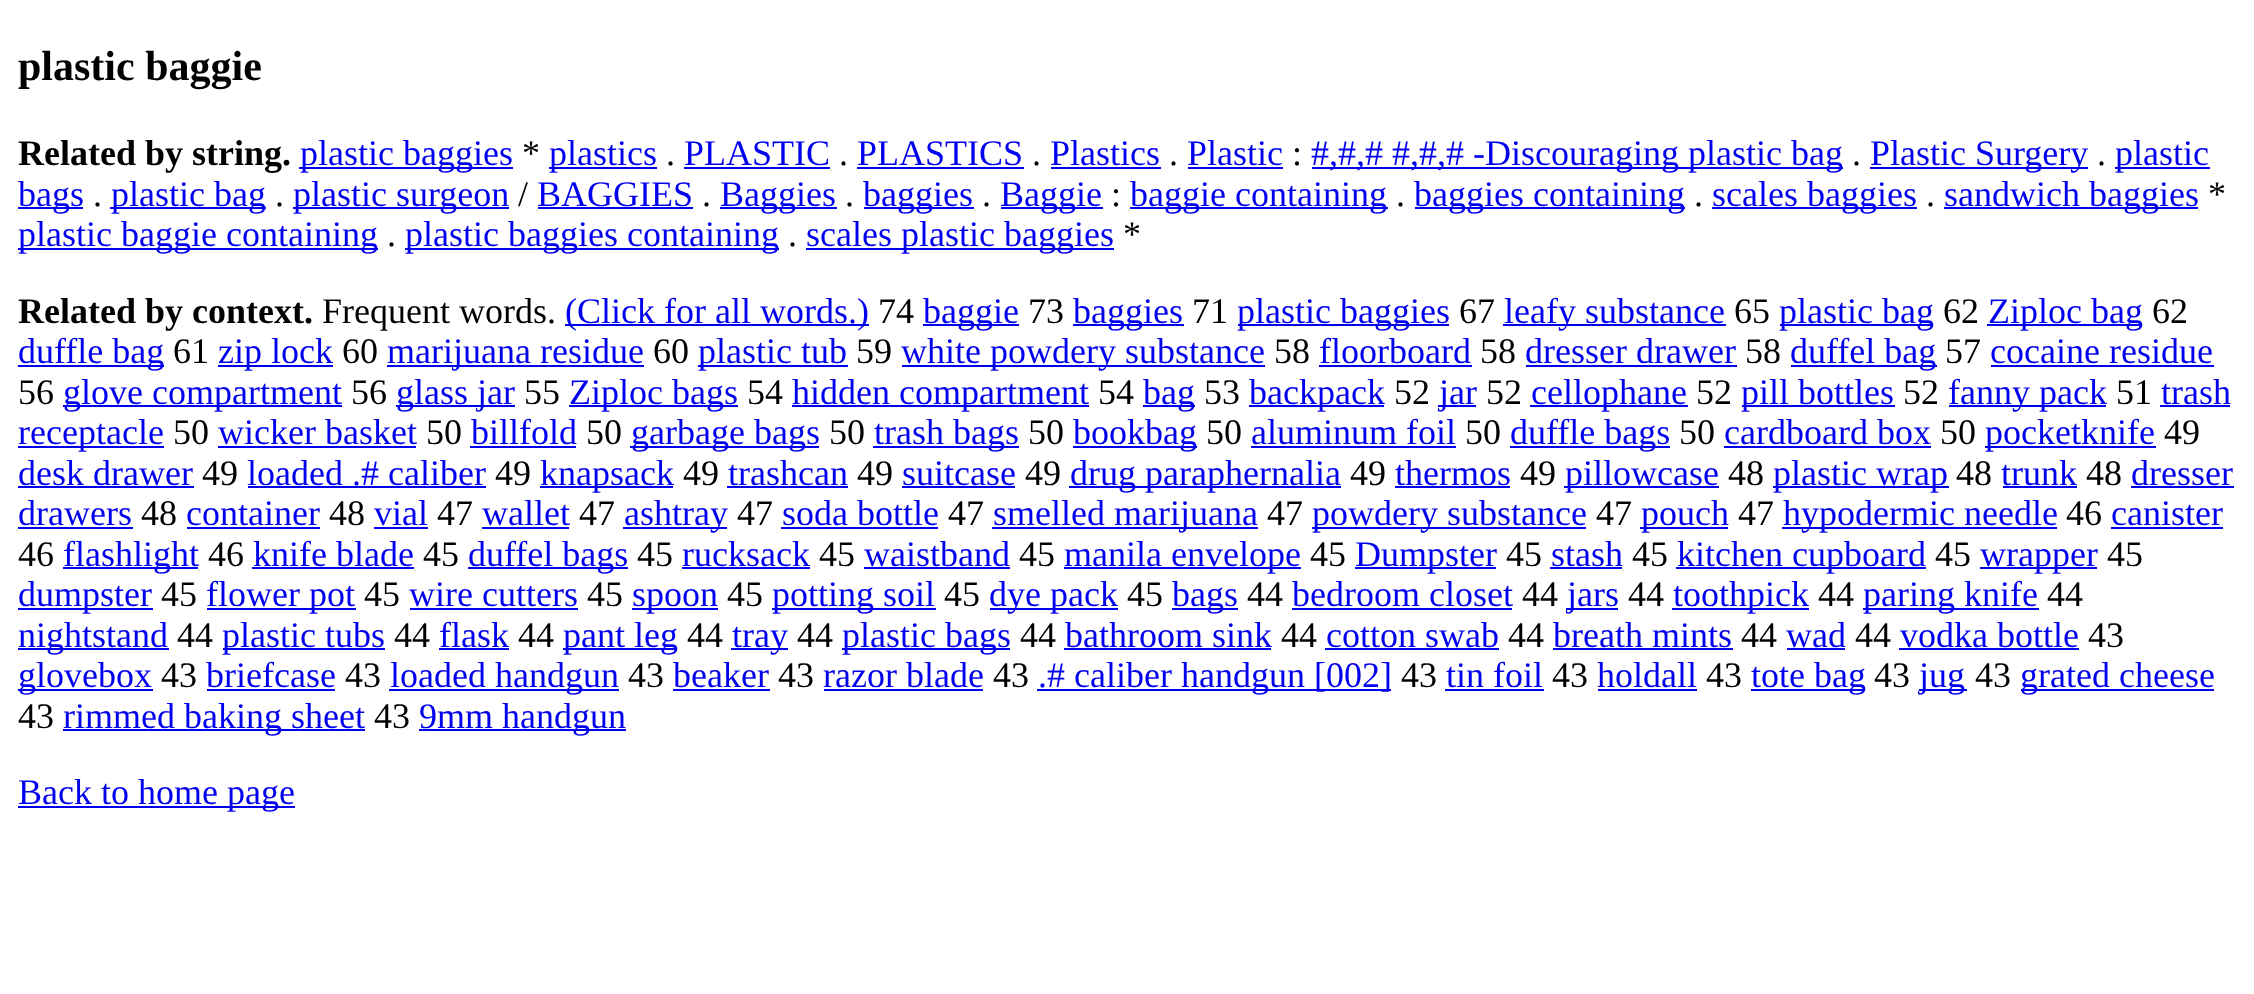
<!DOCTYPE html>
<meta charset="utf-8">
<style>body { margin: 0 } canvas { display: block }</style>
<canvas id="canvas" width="2254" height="994"></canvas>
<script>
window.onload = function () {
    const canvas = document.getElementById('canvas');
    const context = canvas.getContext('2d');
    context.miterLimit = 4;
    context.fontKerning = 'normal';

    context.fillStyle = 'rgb(255, 255, 255)';
    context.fillRect(0, 0, 2254, 994);
    context.fillStyle = 'rgb(0, 0, 238)';
    context.fillRect(299, 167, 214, 2);
    context.fillRect(549, 167, 108, 2);
    context.fillRect(684, 167, 146, 2);
    context.fillRect(857, 167, 167, 2);
    context.fillRect(1051, 167, 110, 2);
    context.fillRect(1188, 167, 95, 2);
    context.fillRect(1312, 167, 531, 2);
    context.fillRect(1870, 167, 218, 2);
    context.fillRect(2115, 167, 95, 2);
    context.fillRect(18, 207, 65, 2);
    context.fillRect(110, 207, 156, 2);
    context.fillRect(293, 207, 216, 2);
    context.fillRect(538, 207, 155, 2);
    context.fillRect(720, 207, 117, 2);
    context.fillRect(864, 207, 110, 2);
    context.fillRect(1001, 207, 102, 2);
    context.fillRect(1130, 207, 258, 2);
    context.fillRect(1415, 207, 270, 2);
    context.fillRect(1712, 207, 205, 2);
    context.fillRect(1944, 207, 254, 2);
    context.fillRect(18, 248, 360, 2);
    context.fillRect(405, 248, 374, 2);
    context.fillRect(806, 248, 308, 2);
    context.fillRect(565, 324, 304, 2);
    context.fillRect(923, 324, 96, 2);
    context.fillRect(1073, 324, 111, 2);
    context.fillRect(1238, 324, 211, 2);
    context.fillRect(1503, 324, 223, 2);
    context.fillRect(1780, 324, 153, 2);
    context.fillRect(1987, 324, 155, 2);
    context.fillRect(18, 365, 146, 2);
    context.fillRect(218, 365, 115, 2);
    context.fillRect(387, 365, 257, 2);
    context.fillRect(698, 365, 150, 2);
    context.fillRect(902, 365, 363, 2);
    context.fillRect(1319, 365, 153, 2);
    context.fillRect(1526, 365, 211, 2);
    context.fillRect(1791, 365, 146, 2);
    context.fillRect(1991, 365, 223, 2);
    context.fillRect(63, 405, 279, 2);
    context.fillRect(396, 405, 119, 2);
    context.fillRect(569, 405, 169, 2);
    context.fillRect(792, 405, 297, 2);
    context.fillRect(1143, 405, 52, 2);
    context.fillRect(1249, 405, 135, 2);
    context.fillRect(1438, 405, 38, 2);
    context.fillRect(1530, 405, 158, 2);
    context.fillRect(1742, 405, 153, 2);
    context.fillRect(1949, 405, 157, 2);
    context.fillRect(2160, 405, 70, 2);
    context.fillRect(18, 446, 146, 2);
    context.fillRect(218, 446, 198, 2);
    context.fillRect(470, 446, 106, 2);
    context.fillRect(630, 446, 189, 2);
    context.fillRect(873, 446, 146, 2);
    context.fillRect(1073, 446, 124, 2);
    context.fillRect(1251, 446, 205, 2);
    context.fillRect(1510, 446, 160, 2);
    context.fillRect(1724, 446, 207, 2);
    context.fillRect(1985, 446, 171, 2);
    context.fillRect(18, 486, 176, 2);
    context.fillRect(248, 486, 238, 2);
    context.fillRect(540, 486, 133, 2);
    context.fillRect(727, 486, 121, 2);
    context.fillRect(902, 486, 113, 2);
    context.fillRect(1069, 486, 272, 2);
    context.fillRect(1395, 486, 115, 2);
    context.fillRect(1564, 486, 155, 2);
    context.fillRect(1773, 486, 176, 2);
    context.fillRect(2003, 486, 74, 2);
    context.fillRect(2131, 486, 103, 2);
    context.fillRect(18, 527, 115, 2);
    context.fillRect(187, 527, 133, 2);
    context.fillRect(374, 527, 54, 2);
    context.fillRect(482, 527, 87, 2);
    context.fillRect(623, 527, 104, 2);
    context.fillRect(781, 527, 157, 2);
    context.fillRect(992, 527, 266, 2);
    context.fillRect(1312, 527, 274, 2);
    context.fillRect(1640, 527, 88, 2);
    context.fillRect(1782, 527, 275, 2);
    context.fillRect(2111, 527, 112, 2);
    context.fillRect(63, 567, 135, 2);
    context.fillRect(252, 567, 162, 2);
    context.fillRect(468, 567, 160, 2);
    context.fillRect(682, 567, 128, 2);
    context.fillRect(864, 567, 146, 2);
    context.fillRect(1064, 567, 237, 2);
    context.fillRect(1355, 567, 141, 2);
    context.fillRect(1550, 567, 72, 2);
    context.fillRect(1676, 567, 250, 2);
    context.fillRect(1980, 567, 117, 2);
    context.fillRect(18, 608, 135, 2);
    context.fillRect(207, 608, 149, 2);
    context.fillRect(410, 608, 168, 2);
    context.fillRect(632, 608, 86, 2);
    context.fillRect(772, 608, 164, 2);
    context.fillRect(990, 608, 128, 2);
    context.fillRect(1172, 608, 66, 2);
    context.fillRect(1292, 608, 220, 2);
    context.fillRect(1566, 608, 52, 2);
    context.fillRect(1672, 608, 137, 2);
    context.fillRect(1863, 608, 176, 2);
    context.fillRect(18, 648, 151, 2);
    context.fillRect(223, 648, 162, 2);
    context.fillRect(439, 648, 70, 2);
    context.fillRect(563, 648, 114, 2);
    context.fillRect(731, 648, 57, 2);
    context.fillRect(842, 648, 168, 2);
    context.fillRect(1064, 648, 207, 2);
    context.fillRect(1325, 648, 174, 2);
    context.fillRect(1553, 648, 180, 2);
    context.fillRect(1787, 648, 58, 2);
    context.fillRect(1899, 648, 180, 2);
    context.fillRect(18, 689, 135, 2);
    context.fillRect(207, 689, 128, 2);
    context.fillRect(389, 689, 230, 2);
    context.fillRect(673, 689, 97, 2);
    context.fillRect(824, 689, 159, 2);
    context.fillRect(1037, 689, 354, 2);
    context.fillRect(1445, 689, 99, 2);
    context.fillRect(1598, 689, 99, 2);
    context.fillRect(1751, 689, 114, 2);
    context.fillRect(1919, 689, 48, 2);
    context.fillRect(2021, 689, 193, 2);
    context.fillRect(63, 729, 302, 2);
    context.fillRect(419, 729, 207, 2);
    context.fillRect(18, 806, 277, 2);
    context.font = 'bold 42px Liberation Serif';
    context.fillStyle = 'rgb(0, 0, 0)';
    context.fillText('plastic baggie', 18, 80);
    context.font = 'bold 36px Liberation Serif';
    context.fillText('Related by string.', 18, 165);
    context.font = '36px Liberation Serif';
    context.fillStyle = 'rgb(0, 0, 238)';
    context.fillText('plastic baggies', 300, 165);
    context.fillStyle = 'rgb(0, 0, 0)';
    context.fillText('*', 522, 165);
    context.fillStyle = 'rgb(0, 0, 238)';
    context.fillText('plastics', 549, 165);
    context.fillStyle = 'rgb(0, 0, 0)';
    context.fillText('.', 666, 165);
    context.fillStyle = 'rgb(0, 0, 238)';
    context.fillText('PLASTIC', 684, 165);
    context.fillStyle = 'rgb(0, 0, 0)';
    context.fillText('.', 839, 165);
    context.fillStyle = 'rgb(0, 0, 238)';
    context.fillText('PLASTICS', 857, 165);
    context.fillStyle = 'rgb(0, 0, 0)';
    context.fillText('.', 1032, 165);
    context.fillStyle = 'rgb(0, 0, 238)';
    context.fillText('Plastics', 1050, 165);
    context.fillStyle = 'rgb(0, 0, 0)';
    context.fillText('.', 1169, 165);
    context.fillStyle = 'rgb(0, 0, 238)';
    context.fillText('Plastic', 1187, 165);
    context.fillStyle = 'rgb(0, 0, 0)';
    context.fillText(':', 1292, 165);
    context.fillStyle = 'rgb(0, 0, 238)';
    context.fillText('#,#,# #,#,# -Discouraging plastic bag', 1311, 165);
    context.fillStyle = 'rgb(0, 0, 0)';
    context.fillText('.', 1852, 165);
    context.fillStyle = 'rgb(0, 0, 238)';
    context.fillText('Plastic Surgery', 1870, 165);
    context.fillStyle = 'rgb(0, 0, 0)';
    context.fillText('.', 2097, 165);
    context.fillStyle = 'rgb(0, 0, 238)';
    context.fillText('plastic', 2115, 165);
    context.fillText('bags', 18, 206);
    context.fillStyle = 'rgb(0, 0, 0)';
    context.fillText('.', 93, 206);
    context.fillStyle = 'rgb(0, 0, 238)';
    context.fillText('plastic bag', 111, 206);
    context.fillStyle = 'rgb(0, 0, 0)';
    context.fillText('.', 275, 206);
    context.fillStyle = 'rgb(0, 0, 238)';
    context.fillText('plastic surgeon', 293, 206);
    context.fillStyle = 'rgb(0, 0, 0)';
    context.fillText('/', 518, 206);
    context.fillStyle = 'rgb(0, 0, 238)';
    context.fillText('BAGGIES', 537, 206);
    context.fillStyle = 'rgb(0, 0, 0)';
    context.fillText('.', 702, 206);
    context.fillStyle = 'rgb(0, 0, 238)';
    context.fillText('Baggies', 720, 206);
    context.fillStyle = 'rgb(0, 0, 0)';
    context.fillText('.', 845, 206);
    context.fillStyle = 'rgb(0, 0, 238)';
    context.fillText('baggies', 863, 206);
    context.fillStyle = 'rgb(0, 0, 0)';
    context.fillText('.', 982, 206);
    context.fillStyle = 'rgb(0, 0, 238)';
    context.fillText('Baggie', 1000, 206);
    context.fillStyle = 'rgb(0, 0, 0)';
    context.fillText(':', 1111, 206);
    context.fillStyle = 'rgb(0, 0, 238)';
    context.fillText('baggie containing', 1130, 206);
    context.fillStyle = 'rgb(0, 0, 0)';
    context.fillText('.', 1396, 206);
    context.fillStyle = 'rgb(0, 0, 238)';
    context.fillText('baggies containing', 1414, 206);
    context.fillStyle = 'rgb(0, 0, 0)';
    context.fillText('.', 1694, 206);
    context.fillStyle = 'rgb(0, 0, 238)';
    context.fillText('scales baggies', 1712, 206);
    context.fillStyle = 'rgb(0, 0, 0)';
    context.fillText('.', 1926, 206);
    context.fillStyle = 'rgb(0, 0, 238)';
    context.fillText('sandwich baggies', 1944, 206);
    context.fillStyle = 'rgb(0, 0, 0)';
    context.fillText('*', 2208, 206);
    context.fillStyle = 'rgb(0, 0, 238)';
    context.fillText('plastic baggie containing', 18, 246);
    context.fillText('plastic baggies containing', 405, 246);
    context.fillText('scales plastic baggies', 806, 246);
    context.fillStyle = 'rgb(0, 0, 0)';
    context.fillText('*', 1123, 246);
    context.fillText('.', 387, 246);
    context.fillText('.', 788, 246);
    context.font = 'bold 36px Liberation Serif';
    context.fillText('Related by context.', 18, 323);
    context.font = '36px Liberation Serif';
    context.fillText('Frequent words.', 322, 323);
    context.fillStyle = 'rgb(0, 0, 238)';
    context.fillText('(Click for all words.)', 565, 323);
    context.fillStyle = 'rgb(0, 0, 0)';
    context.fillText('74', 878, 323);
    context.fillStyle = 'rgb(0, 0, 238)';
    context.fillText('baggie', 923, 323);
    context.fillStyle = 'rgb(0, 0, 0)';
    context.fillText('73', 1028, 323);
    context.fillStyle = 'rgb(0, 0, 238)';
    context.fillText('baggies', 1073, 323);
    context.fillStyle = 'rgb(0, 0, 0)';
    context.fillText('71', 1192, 323);
    context.fillStyle = 'rgb(0, 0, 238)';
    context.fillText('plastic baggies', 1237, 323);
    context.fillStyle = 'rgb(0, 0, 0)';
    context.fillText('67', 1459, 323);
    context.fillStyle = 'rgb(0, 0, 238)';
    context.fillText('leafy substance', 1504, 323);
    context.fillStyle = 'rgb(0, 0, 0)';
    context.fillText('65', 1734, 323);
    context.fillStyle = 'rgb(0, 0, 238)';
    context.fillText('plastic bag', 1779, 323);
    context.fillStyle = 'rgb(0, 0, 0)';
    context.fillText('62', 1943, 323);
    context.fillStyle = 'rgb(0, 0, 238)';
    context.fillText('Ziploc bag', 1988, 323);
    context.fillStyle = 'rgb(0, 0, 0)';
    context.fillText('62', 2152, 323);
    context.fillStyle = 'rgb(0, 0, 238)';
    context.fillText('duffle bag', 18, 363);
    context.fillStyle = 'rgb(0, 0, 0)';
    context.fillText('61', 173, 363);
    context.fillStyle = 'rgb(0, 0, 238)';
    context.fillText('zip lock', 218, 363);
    context.fillStyle = 'rgb(0, 0, 0)';
    context.fillText('60', 342, 363);
    context.fillStyle = 'rgb(0, 0, 238)';
    context.fillText('marijuana residue', 387, 363);
    context.fillStyle = 'rgb(0, 0, 0)';
    context.fillText('60', 653, 363);
    context.fillStyle = 'rgb(0, 0, 238)';
    context.fillText('plastic tub', 698, 363);
    context.fillStyle = 'rgb(0, 0, 0)';
    context.fillText('59', 856, 363);
    context.fillStyle = 'rgb(0, 0, 238)';
    context.fillText('white powdery substance', 901, 363);
    context.fillStyle = 'rgb(0, 0, 0)';
    context.fillText('58', 1274, 363);
    context.fillStyle = 'rgb(0, 0, 238)';
    context.fillText('floorboard', 1319, 363);
    context.fillStyle = 'rgb(0, 0, 0)';
    context.fillText('58', 1480, 363);
    context.fillStyle = 'rgb(0, 0, 238)';
    context.fillText('dresser drawer', 1525, 363);
    context.fillStyle = 'rgb(0, 0, 0)';
    context.fillText('58', 1745, 363);
    context.fillStyle = 'rgb(0, 0, 238)';
    context.fillText('duffel bag', 1790, 363);
    context.fillStyle = 'rgb(0, 0, 0)';
    context.fillText('57', 1945, 363);
    context.fillStyle = 'rgb(0, 0, 238)';
    context.fillText('cocaine residue', 1990, 363);
    context.fillStyle = 'rgb(0, 0, 0)';
    context.fillText('56', 18, 404);
    context.fillStyle = 'rgb(0, 0, 238)';
    context.fillText('glove compartment', 63, 404);
    context.fillStyle = 'rgb(0, 0, 0)';
    context.fillText('56', 351, 404);
    context.fillStyle = 'rgb(0, 0, 238)';
    context.fillText('glass jar', 396, 404);
    context.fillStyle = 'rgb(0, 0, 0)';
    context.fillText('55', 524, 404);
    context.fillStyle = 'rgb(0, 0, 238)';
    context.fillText('Ziploc bags', 569, 404);
    context.fillStyle = 'rgb(0, 0, 0)';
    context.fillText('54', 747, 404);
    context.fillStyle = 'rgb(0, 0, 238)';
    context.fillText('hidden compartment', 792, 404);
    context.fillStyle = 'rgb(0, 0, 0)';
    context.fillText('54', 1098, 404);
    context.fillStyle = 'rgb(0, 0, 238)';
    context.fillText('bag', 1143, 404);
    context.fillStyle = 'rgb(0, 0, 0)';
    context.fillText('53', 1204, 404);
    context.fillStyle = 'rgb(0, 0, 238)';
    context.fillText('backpack', 1249, 404);
    context.fillStyle = 'rgb(0, 0, 0)';
    context.fillText('52', 1394, 404);
    context.fillStyle = 'rgb(0, 0, 238)';
    context.fillText('jar', 1439, 404);
    context.fillStyle = 'rgb(0, 0, 0)';
    context.fillText('52', 1486, 404);
    context.fillStyle = 'rgb(0, 0, 238)';
    context.fillText('cellophane', 1531, 404);
    context.fillStyle = 'rgb(0, 0, 0)';
    context.fillText('52', 1696, 404);
    context.fillStyle = 'rgb(0, 0, 238)';
    context.fillText('pill bottles', 1741, 404);
    context.fillStyle = 'rgb(0, 0, 0)';
    context.fillText('52', 1903, 404);
    context.fillStyle = 'rgb(0, 0, 238)';
    context.fillText('fanny pack', 1948, 404);
    context.fillStyle = 'rgb(0, 0, 0)';
    context.fillText('51', 2116, 404);
    context.fillStyle = 'rgb(0, 0, 238)';
    context.fillText('trash', 2161, 404);
    context.fillText('receptacle', 18, 444);
    context.fillStyle = 'rgb(0, 0, 0)';
    context.fillText('50', 173, 444);
    context.fillStyle = 'rgb(0, 0, 238)';
    context.fillText('wicker basket', 218, 444);
    context.fillStyle = 'rgb(0, 0, 0)';
    context.fillText('50', 426, 444);
    context.fillStyle = 'rgb(0, 0, 238)';
    context.fillText('billfold', 471, 444);
    context.fillStyle = 'rgb(0, 0, 0)';
    context.fillText('50', 586, 444);
    context.fillStyle = 'rgb(0, 0, 238)';
    context.fillText('garbage bags', 631, 444);
    context.fillStyle = 'rgb(0, 0, 0)';
    context.fillText('50', 829, 444);
    context.fillStyle = 'rgb(0, 0, 238)';
    context.fillText('trash bags', 874, 444);
    context.fillStyle = 'rgb(0, 0, 0)';
    context.fillText('50', 1028, 444);
    context.fillStyle = 'rgb(0, 0, 238)';
    context.fillText('bookbag', 1073, 444);
    context.fillStyle = 'rgb(0, 0, 0)';
    context.fillText('50', 1206, 444);
    context.fillStyle = 'rgb(0, 0, 238)';
    context.fillText('aluminum foil', 1251, 444);
    context.fillStyle = 'rgb(0, 0, 0)';
    context.fillText('50', 1465, 444);
    context.fillStyle = 'rgb(0, 0, 238)';
    context.fillText('duffle bags', 1510, 444);
    context.fillStyle = 'rgb(0, 0, 0)';
    context.fillText('50', 1679, 444);
    context.fillStyle = 'rgb(0, 0, 238)';
    context.fillText('cardboard box', 1724, 444);
    context.fillStyle = 'rgb(0, 0, 0)';
    context.fillText('50', 1940, 444);
    context.fillStyle = 'rgb(0, 0, 238)';
    context.fillText('pocketknife', 1985, 444);
    context.fillStyle = 'rgb(0, 0, 0)';
    context.fillText('49', 2164, 444);
    context.fillStyle = 'rgb(0, 0, 238)';
    context.fillText('desk drawer', 18, 485);
    context.fillStyle = 'rgb(0, 0, 0)';
    context.fillText('49', 202, 485);
    context.fillStyle = 'rgb(0, 0, 238)';
    context.fillText('loaded .# caliber', 247, 485);
    context.fillStyle = 'rgb(0, 0, 0)';
    context.fillText('49', 495, 485);
    context.fillStyle = 'rgb(0, 0, 238)';
    context.fillText('knapsack', 540, 485);
    context.fillStyle = 'rgb(0, 0, 0)';
    context.fillText('49', 683, 485);
    context.fillStyle = 'rgb(0, 0, 238)';
    context.fillText('trashcan', 728, 485);
    context.fillStyle = 'rgb(0, 0, 0)';
    context.fillText('49', 857, 485);
    context.fillStyle = 'rgb(0, 0, 238)';
    context.fillText('suitcase', 902, 485);
    context.fillStyle = 'rgb(0, 0, 0)';
    context.fillText('49', 1025, 485);
    context.fillStyle = 'rgb(0, 0, 238)';
    context.fillText('drug paraphernalia', 1070, 485);
    context.fillStyle = 'rgb(0, 0, 0)';
    context.fillText('49', 1350, 485);
    context.fillStyle = 'rgb(0, 0, 238)';
    context.fillText('thermos', 1395, 485);
    context.fillStyle = 'rgb(0, 0, 0)';
    context.fillText('49', 1520, 485);
    context.fillStyle = 'rgb(0, 0, 238)';
    context.fillText('pillowcase', 1565, 485);
    context.fillStyle = 'rgb(0, 0, 0)';
    context.fillText('48', 1728, 485);
    context.fillStyle = 'rgb(0, 0, 238)';
    context.fillText('plastic wrap', 1773, 485);
    context.fillStyle = 'rgb(0, 0, 0)';
    context.fillText('48', 1956, 485);
    context.fillStyle = 'rgb(0, 0, 238)';
    context.fillText('trunk', 2001, 485);
    context.fillStyle = 'rgb(0, 0, 0)';
    context.fillText('48', 2086, 485);
    context.fillStyle = 'rgb(0, 0, 238)';
    context.fillText('dresser', 2131, 485);
    context.fillText('drawers', 18, 525);
    context.fillStyle = 'rgb(0, 0, 0)';
    context.fillText('48', 141, 525);
    context.fillStyle = 'rgb(0, 0, 238)';
    context.fillText('container', 186, 525);
    context.fillStyle = 'rgb(0, 0, 0)';
    context.fillText('48', 329, 525);
    context.fillStyle = 'rgb(0, 0, 238)';
    context.fillText('vial', 374, 525);
    context.fillStyle = 'rgb(0, 0, 0)';
    context.fillText('47', 437, 525);
    context.fillStyle = 'rgb(0, 0, 238)';
    context.fillText('wallet', 482, 525);
    context.fillStyle = 'rgb(0, 0, 0)';
    context.fillText('47', 579, 525);
    context.fillStyle = 'rgb(0, 0, 238)';
    context.fillText('ashtray', 624, 525);
    context.fillStyle = 'rgb(0, 0, 0)';
    context.fillText('47', 737, 525);
    context.fillStyle = 'rgb(0, 0, 238)';
    context.fillText('soda bottle', 782, 525);
    context.fillStyle = 'rgb(0, 0, 0)';
    context.fillText('47', 948, 525);
    context.fillStyle = 'rgb(0, 0, 238)';
    context.fillText('smelled marijuana', 993, 525);
    context.fillStyle = 'rgb(0, 0, 0)';
    context.fillText('47', 1267, 525);
    context.fillStyle = 'rgb(0, 0, 238)';
    context.fillText('powdery substance', 1312, 525);
    context.fillStyle = 'rgb(0, 0, 0)';
    context.fillText('47', 1596, 525);
    context.fillStyle = 'rgb(0, 0, 238)';
    context.fillText('pouch', 1641, 525);
    context.fillStyle = 'rgb(0, 0, 0)';
    context.fillText('47', 1738, 525);
    context.fillStyle = 'rgb(0, 0, 238)';
    context.fillText('hypodermic needle', 1783, 525);
    context.fillStyle = 'rgb(0, 0, 0)';
    context.fillText('46', 2066, 525);
    context.fillStyle = 'rgb(0, 0, 238)';
    context.fillText('canister', 2111, 525);
    context.fillStyle = 'rgb(0, 0, 0)';
    context.fillText('46', 18, 566);
    context.fillStyle = 'rgb(0, 0, 238)';
    context.fillText('flashlight', 63, 566);
    context.fillStyle = 'rgb(0, 0, 0)';
    context.fillText('46', 208, 566);
    context.fillStyle = 'rgb(0, 0, 238)';
    context.fillText('knife blade', 253, 566);
    context.fillStyle = 'rgb(0, 0, 0)';
    context.fillText('45', 423, 566);
    context.fillStyle = 'rgb(0, 0, 238)';
    context.fillText('duffel bags', 468, 566);
    context.fillStyle = 'rgb(0, 0, 0)';
    context.fillText('45', 637, 566);
    context.fillStyle = 'rgb(0, 0, 238)';
    context.fillText('rucksack', 682, 566);
    context.fillStyle = 'rgb(0, 0, 0)';
    context.fillText('45', 819, 566);
    context.fillStyle = 'rgb(0, 0, 238)';
    context.fillText('waistband', 864, 566);
    context.fillStyle = 'rgb(0, 0, 0)';
    context.fillText('45', 1019, 566);
    context.fillStyle = 'rgb(0, 0, 238)';
    context.fillText('manila envelope', 1064, 566);
    context.fillStyle = 'rgb(0, 0, 0)';
    context.fillText('45', 1310, 566);
    context.fillStyle = 'rgb(0, 0, 238)';
    context.fillText('Dumpster', 1355, 566);
    context.fillStyle = 'rgb(0, 0, 0)';
    context.fillText('45', 1506, 566);
    context.fillStyle = 'rgb(0, 0, 238)';
    context.fillText('stash', 1551, 566);
    context.fillStyle = 'rgb(0, 0, 0)';
    context.fillText('45', 1632, 566);
    context.fillStyle = 'rgb(0, 0, 238)';
    context.fillText('kitchen cupboard', 1677, 566);
    context.fillStyle = 'rgb(0, 0, 0)';
    context.fillText('45', 1935, 566);
    context.fillStyle = 'rgb(0, 0, 238)';
    context.fillText('wrapper', 1980, 566);
    context.fillStyle = 'rgb(0, 0, 0)';
    context.fillText('45', 2107, 566);
    context.fillStyle = 'rgb(0, 0, 238)';
    context.fillText('dumpster', 18, 606);
    context.fillStyle = 'rgb(0, 0, 0)';
    context.fillText('45', 161, 606);
    context.fillStyle = 'rgb(0, 0, 238)';
    context.fillText('flower pot', 206, 606);
    context.fillStyle = 'rgb(0, 0, 0)';
    context.fillText('45', 364, 606);
    context.fillStyle = 'rgb(0, 0, 238)';
    context.fillText('wire cutters', 409, 606);
    context.fillStyle = 'rgb(0, 0, 0)';
    context.fillText('45', 587, 606);
    context.fillStyle = 'rgb(0, 0, 238)';
    context.fillText('spoon', 632, 606);
    context.fillStyle = 'rgb(0, 0, 0)';
    context.fillText('45', 727, 606);
    context.fillStyle = 'rgb(0, 0, 238)';
    context.fillText('potting soil', 772, 606);
    context.fillStyle = 'rgb(0, 0, 0)';
    context.fillText('45', 944, 606);
    context.fillStyle = 'rgb(0, 0, 238)';
    context.fillText('dye pack', 989, 606);
    context.fillStyle = 'rgb(0, 0, 0)';
    context.fillText('45', 1127, 606);
    context.fillStyle = 'rgb(0, 0, 238)';
    context.fillText('bags', 1172, 606);
    context.fillStyle = 'rgb(0, 0, 0)';
    context.fillText('44', 1247, 606);
    context.fillStyle = 'rgb(0, 0, 238)';
    context.fillText('bedroom closet', 1292, 606);
    context.fillStyle = 'rgb(0, 0, 0)';
    context.fillText('44', 1522, 606);
    context.fillStyle = 'rgb(0, 0, 238)';
    context.fillText('jars', 1567, 606);
    context.fillStyle = 'rgb(0, 0, 0)';
    context.fillText('44', 1628, 606);
    context.fillStyle = 'rgb(0, 0, 238)';
    context.fillText('toothpick', 1673, 606);
    context.fillStyle = 'rgb(0, 0, 0)';
    context.fillText('44', 1818, 606);
    context.fillStyle = 'rgb(0, 0, 238)';
    context.fillText('paring knife', 1863, 606);
    context.fillStyle = 'rgb(0, 0, 0)';
    context.fillText('44', 2047, 606);
    context.fillStyle = 'rgb(0, 0, 238)';
    context.fillText('nightstand', 18, 647);
    context.fillStyle = 'rgb(0, 0, 0)';
    context.fillText('44', 177, 647);
    context.fillStyle = 'rgb(0, 0, 238)';
    context.fillText('plastic tubs', 222, 647);
    context.fillStyle = 'rgb(0, 0, 0)';
    context.fillText('44', 394, 647);
    context.fillStyle = 'rgb(0, 0, 238)';
    context.fillText('flask', 439, 647);
    context.fillStyle = 'rgb(0, 0, 0)';
    context.fillText('44', 518, 647);
    context.fillStyle = 'rgb(0, 0, 238)';
    context.fillText('pant leg', 563, 647);
    context.fillStyle = 'rgb(0, 0, 0)';
    context.fillText('44', 687, 647);
    context.fillStyle = 'rgb(0, 0, 238)';
    context.fillText('tray', 732, 647);
    context.fillStyle = 'rgb(0, 0, 0)';
    context.fillText('44', 797, 647);
    context.fillStyle = 'rgb(0, 0, 238)';
    context.fillText('plastic bags', 842, 647);
    context.fillStyle = 'rgb(0, 0, 0)';
    context.fillText('44', 1020, 647);
    context.fillStyle = 'rgb(0, 0, 238)';
    context.fillText('bathroom sink', 1065, 647);
    context.fillStyle = 'rgb(0, 0, 0)';
    context.fillText('44', 1281, 647);
    context.fillStyle = 'rgb(0, 0, 238)';
    context.fillText('cotton swab', 1326, 647);
    context.fillStyle = 'rgb(0, 0, 0)';
    context.fillText('44', 1508, 647);
    context.fillStyle = 'rgb(0, 0, 238)';
    context.fillText('breath mints', 1553, 647);
    context.fillStyle = 'rgb(0, 0, 0)';
    context.fillText('44', 1741, 647);
    context.fillStyle = 'rgb(0, 0, 238)';
    context.fillText('wad', 1786, 647);
    context.fillStyle = 'rgb(0, 0, 0)';
    context.fillText('44', 1855, 647);
    context.fillStyle = 'rgb(0, 0, 238)';
    context.fillText('vodka bottle', 1900, 647);
    context.fillStyle = 'rgb(0, 0, 0)';
    context.fillText('43', 2088, 647);
    context.fillStyle = 'rgb(0, 0, 238)';
    context.fillText('glovebox', 18, 687);
    context.fillStyle = 'rgb(0, 0, 0)';
    context.fillText('43', 161, 687);
    context.fillStyle = 'rgb(0, 0, 238)';
    context.fillText('briefcase', 206, 687);
    context.fillStyle = 'rgb(0, 0, 0)';
    context.fillText('43', 345, 687);
    context.fillStyle = 'rgb(0, 0, 238)';
    context.fillText('loaded handgun', 390, 687);
    context.fillStyle = 'rgb(0, 0, 0)';
    context.fillText('43', 628, 687);
    context.fillStyle = 'rgb(0, 0, 238)';
    context.fillText('beaker', 673, 687);
    context.fillStyle = 'rgb(0, 0, 0)';
    context.fillText('43', 778, 687);
    context.fillStyle = 'rgb(0, 0, 238)';
    context.fillText('razor blade', 823, 687);
    context.fillStyle = 'rgb(0, 0, 0)';
    context.fillText('43', 993, 687);
    context.fillStyle = 'rgb(0, 0, 238)';
    context.fillText('.# caliber handgun [002]', 1038, 687);
    context.fillStyle = 'rgb(0, 0, 0)';
    context.fillText('43', 1401, 687);
    context.fillStyle = 'rgb(0, 0, 238)';
    context.fillText('tin foil', 1446, 687);
    context.fillStyle = 'rgb(0, 0, 0)';
    context.fillText('43', 1552, 687);
    context.fillStyle = 'rgb(0, 0, 238)';
    context.fillText('holdall', 1597, 687);
    context.fillStyle = 'rgb(0, 0, 0)';
    context.fillText('43', 1706, 687);
    context.fillStyle = 'rgb(0, 0, 238)';
    context.fillText('tote bag', 1751, 687);
    context.fillStyle = 'rgb(0, 0, 0)';
    context.fillText('43', 1874, 687);
    context.fillStyle = 'rgb(0, 0, 238)';
    context.fillText('jug', 1919, 687);
    context.fillStyle = 'rgb(0, 0, 0)';
    context.fillText('43', 1975, 687);
    context.fillStyle = 'rgb(0, 0, 238)';
    context.fillText('grated cheese', 2020, 687);
    context.fillStyle = 'rgb(0, 0, 0)';
    context.fillText('43', 18, 728);
    context.fillStyle = 'rgb(0, 0, 238)';
    context.fillText('rimmed baking sheet', 63, 728);
    context.fillStyle = 'rgb(0, 0, 0)';
    context.fillText('43', 374, 728);
    context.fillStyle = 'rgb(0, 0, 238)';
    context.fillText('9mm handgun', 419, 728);
    context.fillText('Back to home page', 18, 804);
};
</script>
